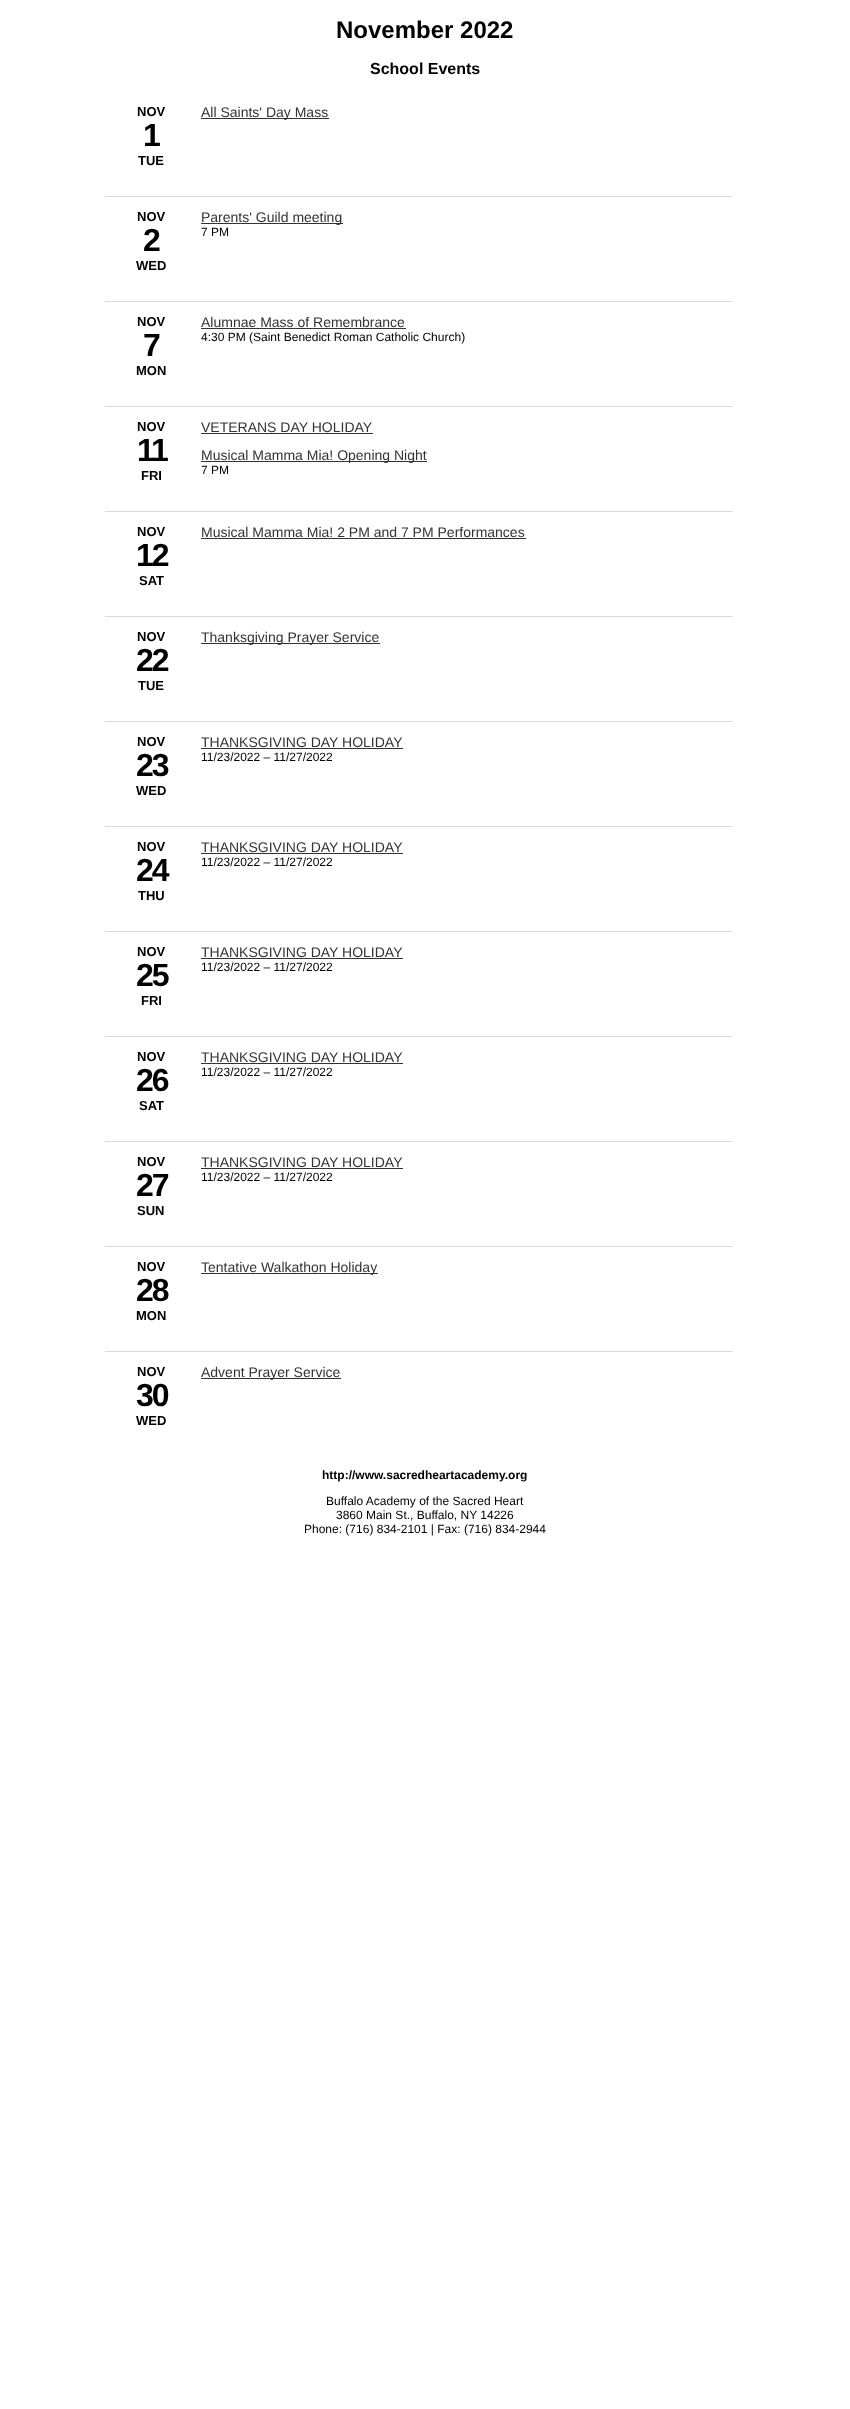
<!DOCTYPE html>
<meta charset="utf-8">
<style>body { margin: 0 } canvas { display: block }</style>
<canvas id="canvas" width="850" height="2409"></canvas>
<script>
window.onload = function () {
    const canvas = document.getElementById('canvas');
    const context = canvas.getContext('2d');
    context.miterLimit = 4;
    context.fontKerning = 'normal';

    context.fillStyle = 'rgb(255, 255, 255)';
    context.fillRect(0, 0, 850, 2409);
    context.fillStyle = 'rgb(51, 51, 51)';
    context.fillRect(201, 118, 128, 1);
    context.fillStyle = 'rgb(217, 217, 217)';
    context.fillRect(105, 196, 628, 1);
    context.fillStyle = 'rgb(51, 51, 51)';
    context.fillRect(201, 223, 142, 1);
    context.fillStyle = 'rgb(217, 217, 217)';
    context.fillRect(105, 301, 628, 1);
    context.fillStyle = 'rgb(51, 51, 51)';
    context.fillRect(201, 328, 205, 1);
    context.fillStyle = 'rgb(217, 217, 217)';
    context.fillRect(105, 406, 628, 1);
    context.fillStyle = 'rgb(51, 51, 51)';
    context.fillRect(201, 433, 172, 1);
    context.fillRect(201, 461, 226, 1);
    context.fillStyle = 'rgb(217, 217, 217)';
    context.fillRect(105, 511, 628, 1);
    context.fillStyle = 'rgb(51, 51, 51)';
    context.fillRect(201, 538, 325, 1);
    context.fillStyle = 'rgb(217, 217, 217)';
    context.fillRect(105, 616, 628, 1);
    context.fillStyle = 'rgb(51, 51, 51)';
    context.fillRect(201, 643, 179, 1);
    context.fillStyle = 'rgb(217, 217, 217)';
    context.fillRect(105, 721, 628, 1);
    context.fillStyle = 'rgb(51, 51, 51)';
    context.fillRect(201, 748, 202, 1);
    context.fillStyle = 'rgb(217, 217, 217)';
    context.fillRect(105, 826, 628, 1);
    context.fillStyle = 'rgb(51, 51, 51)';
    context.fillRect(201, 853, 202, 1);
    context.fillStyle = 'rgb(217, 217, 217)';
    context.fillRect(105, 931, 628, 1);
    context.fillStyle = 'rgb(51, 51, 51)';
    context.fillRect(201, 958, 202, 1);
    context.fillStyle = 'rgb(217, 217, 217)';
    context.fillRect(105, 1036, 628, 1);
    context.fillStyle = 'rgb(51, 51, 51)';
    context.fillRect(201, 1063, 202, 1);
    context.fillStyle = 'rgb(217, 217, 217)';
    context.fillRect(105, 1141, 628, 1);
    context.fillStyle = 'rgb(51, 51, 51)';
    context.fillRect(201, 1168, 202, 1);
    context.fillStyle = 'rgb(217, 217, 217)';
    context.fillRect(105, 1246, 628, 1);
    context.fillStyle = 'rgb(51, 51, 51)';
    context.fillRect(201, 1273, 177, 1);
    context.fillStyle = 'rgb(217, 217, 217)';
    context.fillRect(105, 1351, 628, 1);
    context.fillStyle = 'rgb(51, 51, 51)';
    context.fillRect(201, 1378, 140, 1);
    context.font = 'bold 24px Liberation Sans';
    context.fillStyle = 'rgb(0, 0, 0)';
    context.fillText('November 2022', 336, 38);
    context.font = 'bold 16px Liberation Sans';
    context.fillText('School Events', 370, 74);
    context.font = 'bold 13px Liberation Sans';
    context.fillText('NOV', 137, 116);
    context.letterSpacing = '-2px';
    context.font = 'bold 32px Liberation Sans';
    context.fillText('1', 143, 146);
    context.letterSpacing = '0px';
    context.font = 'bold 13px Liberation Sans';
    context.fillText('TUE', 138, 165);
    context.font = '14px Liberation Sans';
    context.fillStyle = 'rgb(51, 51, 51)';
    context.fillText('All Saints\' Day Mass', 201, 117);
    context.font = 'bold 13px Liberation Sans';
    context.fillStyle = 'rgb(0, 0, 0)';
    context.fillText('NOV', 137, 221);
    context.letterSpacing = '-2px';
    context.font = 'bold 32px Liberation Sans';
    context.fillText('2', 143, 251);
    context.letterSpacing = '0px';
    context.font = 'bold 13px Liberation Sans';
    context.fillText('WED', 136, 270);
    context.font = '14px Liberation Sans';
    context.fillStyle = 'rgb(51, 51, 51)';
    context.fillText('Parents\' Guild meeting', 201, 222);
    context.font = '12px Liberation Sans';
    context.fillStyle = 'rgb(0, 0, 0)';
    context.fillText('7 PM', 201, 236);
    context.font = 'bold 13px Liberation Sans';
    context.fillText('NOV', 137, 326);
    context.letterSpacing = '-2px';
    context.font = 'bold 32px Liberation Sans';
    context.fillText('7', 143, 356);
    context.letterSpacing = '0px';
    context.font = 'bold 13px Liberation Sans';
    context.fillText('MON', 136, 375);
    context.font = '14px Liberation Sans';
    context.fillStyle = 'rgb(51, 51, 51)';
    context.fillText('Alumnae Mass of Remembrance', 201, 327);
    context.font = '12px Liberation Sans';
    context.fillStyle = 'rgb(0, 0, 0)';
    context.fillText('4:30 PM (Saint Benedict Roman Catholic Church)', 201, 341);
    context.font = 'bold 13px Liberation Sans';
    context.fillText('NOV', 137, 431);
    context.letterSpacing = '-2px';
    context.font = 'bold 32px Liberation Sans';
    context.fillText('11', 137, 461);
    context.letterSpacing = '0px';
    context.font = 'bold 13px Liberation Sans';
    context.fillText('FRI', 141, 480);
    context.font = '14px Liberation Sans';
    context.fillStyle = 'rgb(51, 51, 51)';
    context.fillText('VETERANS DAY HOLIDAY', 201, 432);
    context.fillText('Musical Mamma Mia! Opening Night', 201, 460);
    context.font = '12px Liberation Sans';
    context.fillStyle = 'rgb(0, 0, 0)';
    context.fillText('7 PM', 201, 474);
    context.font = 'bold 13px Liberation Sans';
    context.fillText('NOV', 137, 536);
    context.letterSpacing = '-2px';
    context.font = 'bold 32px Liberation Sans';
    context.fillText('12', 136, 566);
    context.letterSpacing = '0px';
    context.font = 'bold 13px Liberation Sans';
    context.fillText('SAT', 139, 585);
    context.font = '14px Liberation Sans';
    context.fillStyle = 'rgb(51, 51, 51)';
    context.fillText('Musical Mamma Mia! 2 PM and 7 PM Performances', 201, 537);
    context.font = 'bold 13px Liberation Sans';
    context.fillStyle = 'rgb(0, 0, 0)';
    context.fillText('NOV', 137, 641);
    context.letterSpacing = '-2px';
    context.font = 'bold 32px Liberation Sans';
    context.fillText('22', 136, 671);
    context.letterSpacing = '0px';
    context.font = 'bold 13px Liberation Sans';
    context.fillText('TUE', 138, 690);
    context.font = '14px Liberation Sans';
    context.fillStyle = 'rgb(51, 51, 51)';
    context.fillText('Thanksgiving Prayer Service', 201, 642);
    context.font = 'bold 13px Liberation Sans';
    context.fillStyle = 'rgb(0, 0, 0)';
    context.fillText('NOV', 137, 746);
    context.letterSpacing = '-2px';
    context.font = 'bold 32px Liberation Sans';
    context.fillText('23', 136, 776);
    context.letterSpacing = '0px';
    context.font = 'bold 13px Liberation Sans';
    context.fillText('WED', 136, 795);
    context.font = '14px Liberation Sans';
    context.fillStyle = 'rgb(51, 51, 51)';
    context.fillText('THANKSGIVING DAY HOLIDAY', 201, 747);
    context.font = '12px Liberation Sans';
    context.fillStyle = 'rgb(0, 0, 0)';
    context.fillText('11/23/2022 – 11/27/2022', 201, 761);
    context.font = 'bold 13px Liberation Sans';
    context.fillText('NOV', 137, 851);
    context.letterSpacing = '-2px';
    context.font = 'bold 32px Liberation Sans';
    context.fillText('24', 136, 881);
    context.letterSpacing = '0px';
    context.font = 'bold 13px Liberation Sans';
    context.fillText('THU', 138, 900);
    context.font = '14px Liberation Sans';
    context.fillStyle = 'rgb(51, 51, 51)';
    context.fillText('THANKSGIVING DAY HOLIDAY', 201, 852);
    context.font = '12px Liberation Sans';
    context.fillStyle = 'rgb(0, 0, 0)';
    context.fillText('11/23/2022 – 11/27/2022', 201, 866);
    context.font = 'bold 13px Liberation Sans';
    context.fillText('NOV', 137, 956);
    context.letterSpacing = '-2px';
    context.font = 'bold 32px Liberation Sans';
    context.fillText('25', 136, 986);
    context.letterSpacing = '0px';
    context.font = 'bold 13px Liberation Sans';
    context.fillText('FRI', 141, 1005);
    context.font = '14px Liberation Sans';
    context.fillStyle = 'rgb(51, 51, 51)';
    context.fillText('THANKSGIVING DAY HOLIDAY', 201, 957);
    context.font = '12px Liberation Sans';
    context.fillStyle = 'rgb(0, 0, 0)';
    context.fillText('11/23/2022 – 11/27/2022', 201, 971);
    context.font = 'bold 13px Liberation Sans';
    context.fillText('NOV', 137, 1061);
    context.letterSpacing = '-2px';
    context.font = 'bold 32px Liberation Sans';
    context.fillText('26', 136, 1091);
    context.letterSpacing = '0px';
    context.font = 'bold 13px Liberation Sans';
    context.fillText('SAT', 139, 1110);
    context.font = '14px Liberation Sans';
    context.fillStyle = 'rgb(51, 51, 51)';
    context.fillText('THANKSGIVING DAY HOLIDAY', 201, 1062);
    context.font = '12px Liberation Sans';
    context.fillStyle = 'rgb(0, 0, 0)';
    context.fillText('11/23/2022 – 11/27/2022', 201, 1076);
    context.font = 'bold 13px Liberation Sans';
    context.fillText('NOV', 137, 1166);
    context.letterSpacing = '-2px';
    context.font = 'bold 32px Liberation Sans';
    context.fillText('27', 136, 1196);
    context.letterSpacing = '0px';
    context.font = 'bold 13px Liberation Sans';
    context.fillText('SUN', 137, 1215);
    context.font = '14px Liberation Sans';
    context.fillStyle = 'rgb(51, 51, 51)';
    context.fillText('THANKSGIVING DAY HOLIDAY', 201, 1167);
    context.font = '12px Liberation Sans';
    context.fillStyle = 'rgb(0, 0, 0)';
    context.fillText('11/23/2022 – 11/27/2022', 201, 1181);
    context.font = 'bold 13px Liberation Sans';
    context.fillText('NOV', 137, 1271);
    context.letterSpacing = '-2px';
    context.font = 'bold 32px Liberation Sans';
    context.fillText('28', 136, 1301);
    context.letterSpacing = '0px';
    context.font = 'bold 13px Liberation Sans';
    context.fillText('MON', 136, 1320);
    context.font = '14px Liberation Sans';
    context.fillStyle = 'rgb(51, 51, 51)';
    context.fillText('Tentative Walkathon Holiday', 201, 1272);
    context.font = 'bold 13px Liberation Sans';
    context.fillStyle = 'rgb(0, 0, 0)';
    context.fillText('NOV', 137, 1376);
    context.letterSpacing = '-2px';
    context.font = 'bold 32px Liberation Sans';
    context.fillText('30', 136, 1406);
    context.letterSpacing = '0px';
    context.font = 'bold 13px Liberation Sans';
    context.fillText('WED', 136, 1425);
    context.font = '14px Liberation Sans';
    context.fillStyle = 'rgb(51, 51, 51)';
    context.fillText('Advent Prayer Service', 201, 1377);
    context.font = 'bold 12px Liberation Sans';
    context.fillStyle = 'rgb(0, 0, 0)';
    context.fillText('http://www.sacredheartacademy.org', 322, 1479);
    context.font = '12px Liberation Sans';
    context.fillText('Buffalo Academy of the Sacred Heart', 326, 1505);
    context.fillText('3860 Main St., Buffalo, NY 14226', 336, 1519);
    context.fillText('Phone: (716) 834-2101 | Fax: (716) 834-2944', 304, 1533);
};
</script>
